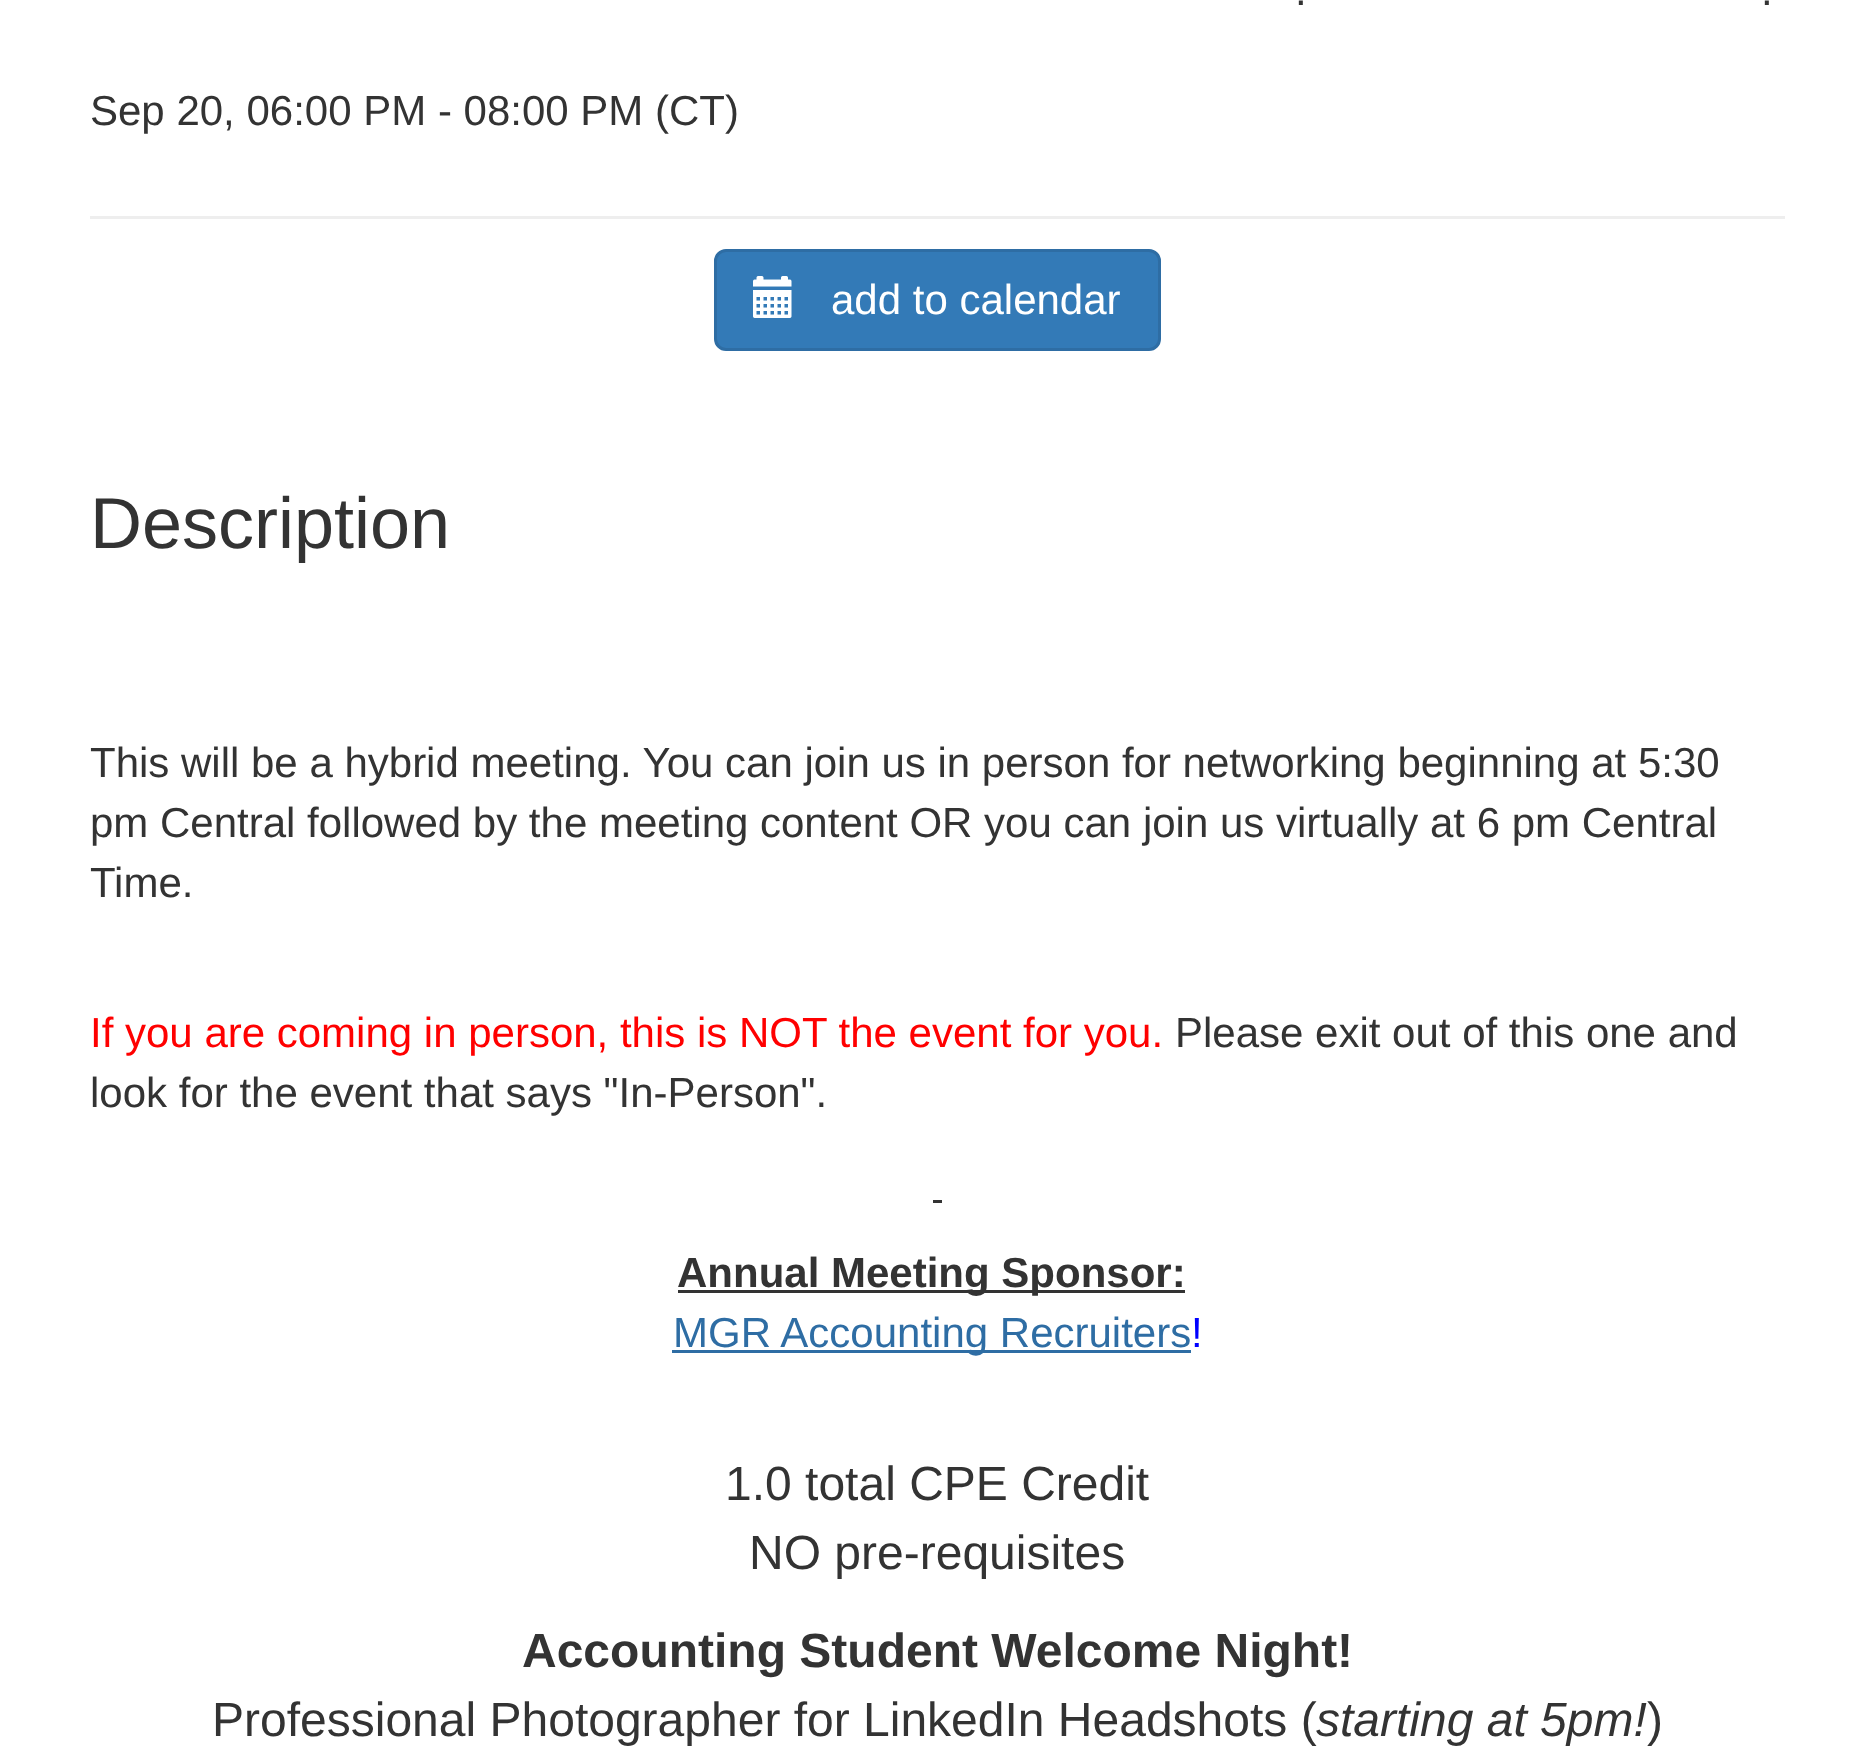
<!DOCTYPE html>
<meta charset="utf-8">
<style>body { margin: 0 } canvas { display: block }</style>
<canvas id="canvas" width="1875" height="1756"></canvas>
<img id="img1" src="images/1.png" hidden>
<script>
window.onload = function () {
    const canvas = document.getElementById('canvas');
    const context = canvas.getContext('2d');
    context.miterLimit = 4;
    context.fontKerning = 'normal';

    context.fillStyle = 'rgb(255, 255, 255)';
    context.fillRect(0, 0, 1875, 1756);
    context.fillStyle = 'rgb(238, 238, 238)';
    context.fillRect(90, 216, 1695, 3);
    context.fillStyle = 'rgb(51, 122, 183)';
    context.beginPath();
    context.roundRect(715.5, 250.5, 444, 99, 10.5);
    context.fill();
    context.strokeStyle = 'rgb(46, 109, 164)';
    context.lineWidth = 3;
    context.stroke();
    context.drawImage(document.getElementById('img1'), 753, 276, 39, 42);
    context.fillStyle = 'rgb(51, 51, 51)';
    context.fillRect(933, 1200, 9, 3);
    context.fillRect(678, 1290, 507, 3);
    context.fillStyle = 'rgb(46, 109, 164)';
    context.fillRect(672, 1350, 519, 3);
    context.font = '42px Liberation Sans';
    context.fillStyle = 'rgb(51, 51, 51)';
    context.fillText('.', 1295, 5);
    context.fillText('.', 1761, 5);
    context.fillText('Sep 20, 06:00 PM - 08:00 PM (CT)', 90, 125);
    context.fillStyle = 'rgb(255, 255, 255)';
    context.fillText('add to calendar', 831, 314);
    context.font = '72px Liberation Sans';
    context.fillStyle = 'rgb(51, 51, 51)';
    context.fillText('Description', 90, 548);
    context.font = '42px Liberation Sans';
    context.fillText('This will be a hybrid meeting. You can join us in person for networking beginning at 5:30', 90, 777);
    context.fillText('pm Central followed by the meeting content OR you can join us virtually at 6 pm Central', 90, 837);
    context.fillText('Time.', 90, 897);
    context.fillStyle = 'rgb(255, 0, 0)';
    context.fillText('If you are coming in person, this is NOT the event for you.', 90, 1047);
    context.fillStyle = 'rgb(51, 51, 51)';
    context.fillText('Please exit out of this one and', 1175, 1047);
    context.fillText('look for the event that says "In-Person".', 90, 1107);
    context.font = 'bold 42px Liberation Sans';
    context.fillText('Annual Meeting Sponsor:', 677, 1287);
    context.font = '42px Liberation Sans';
    context.fillStyle = 'rgb(46, 109, 164)';
    context.fillText('MGR Accounting Recruiters', 673, 1347);
    context.fillStyle = 'rgb(0, 0, 255)';
    context.fillText('!', 1191, 1347);
    context.font = '48px Liberation Sans';
    context.fillStyle = 'rgb(51, 51, 51)';
    context.fillText('1.0 total CPE Credit', 725, 1500);
    context.fillText('NO pre-requisites', 749, 1569);
    context.font = 'bold 48px Liberation Sans';
    context.fillText('Accounting Student Welcome Night!', 522, 1667);
    context.font = '48px Liberation Sans';
    context.fillText('Professional Photographer for LinkedIn Headshots (', 212, 1736);
    context.font = 'italic 48px Liberation Sans';
    context.fillText('starting at 5pm!', 1316, 1736);
    context.font = '48px Liberation Sans';
    context.fillText(')', 1647, 1736);
};
</script>
